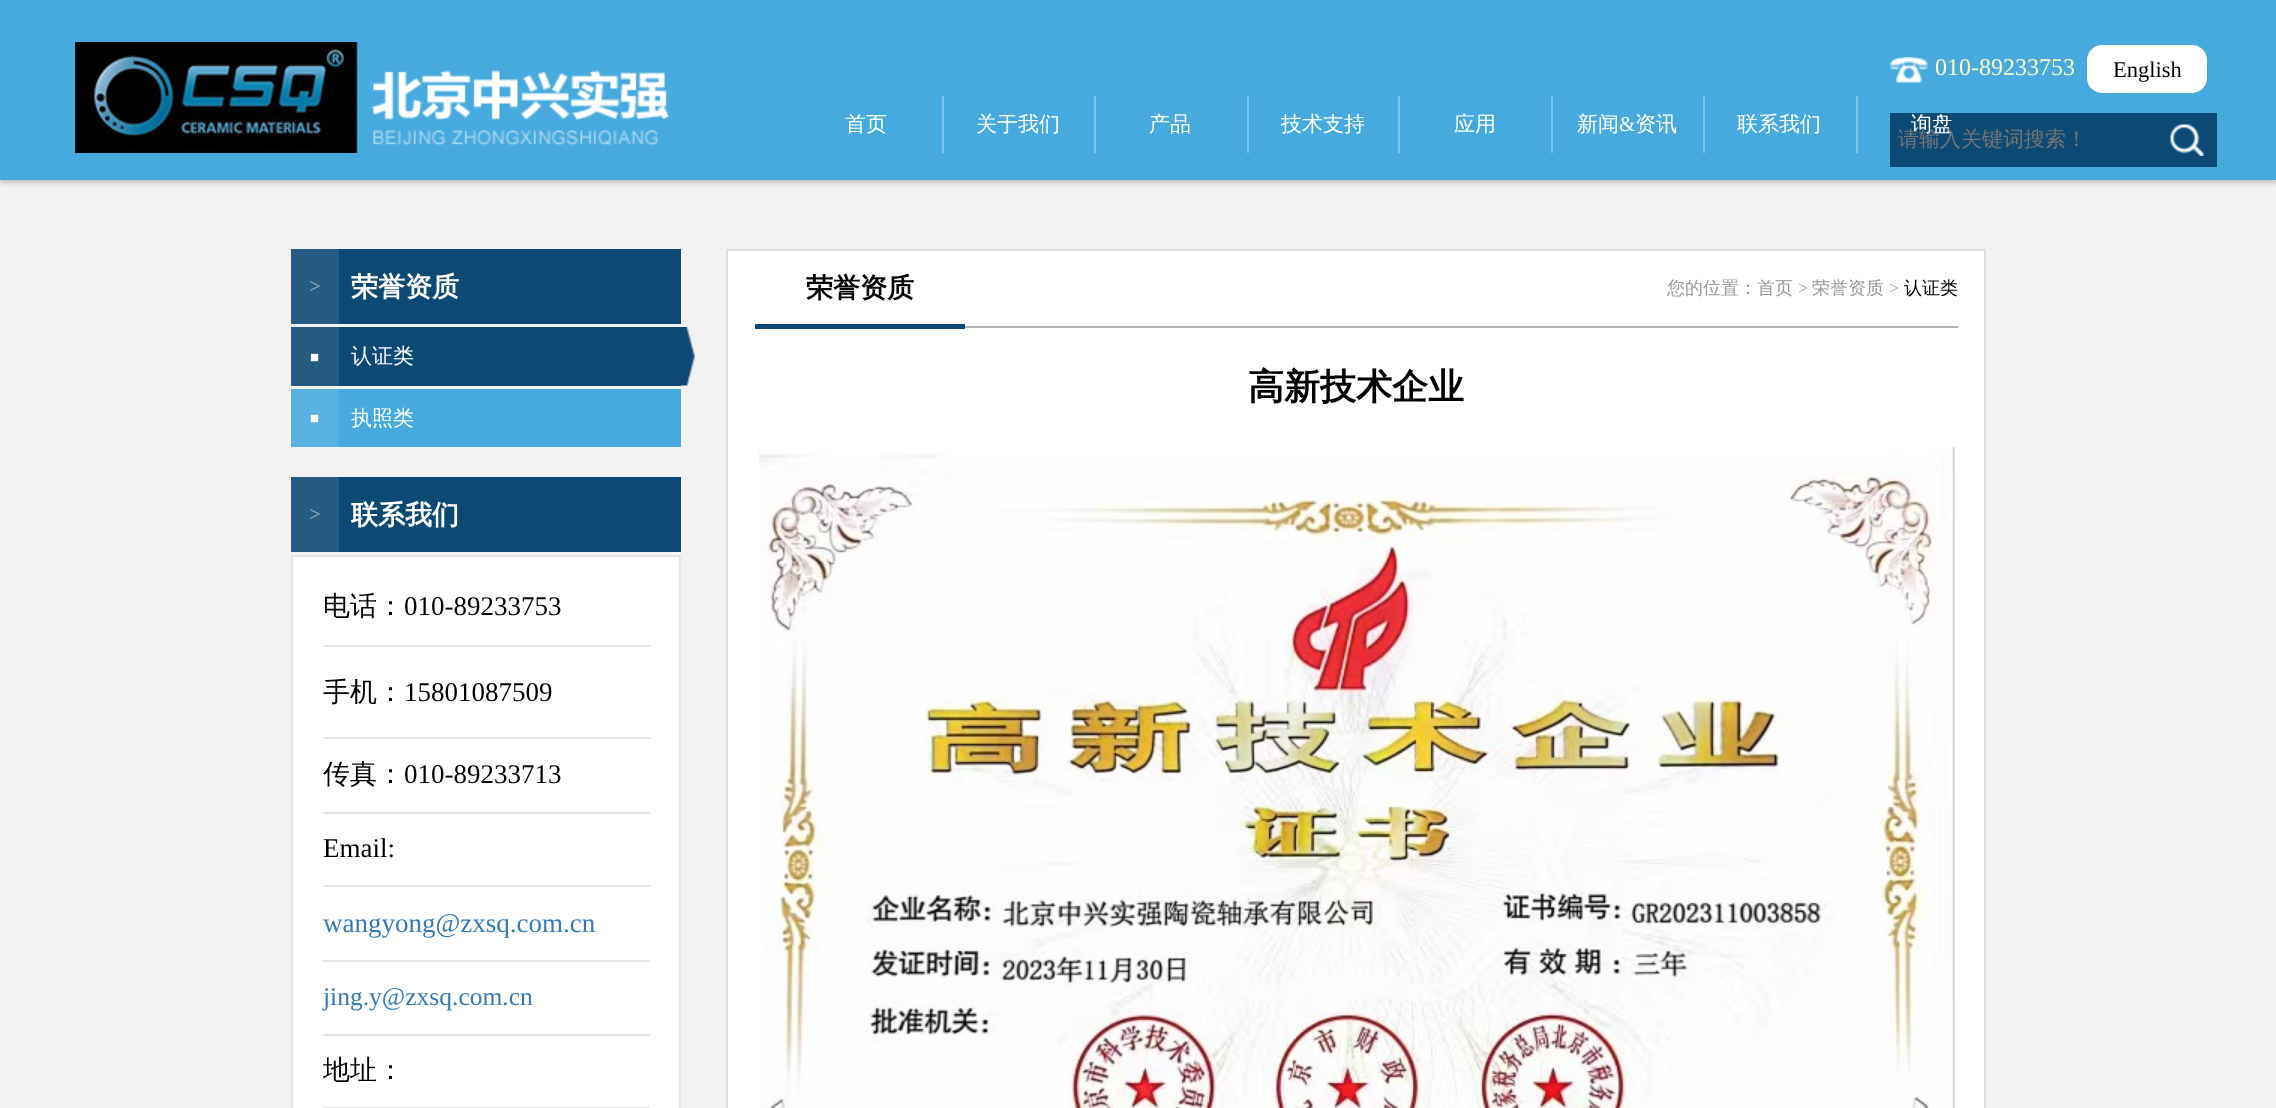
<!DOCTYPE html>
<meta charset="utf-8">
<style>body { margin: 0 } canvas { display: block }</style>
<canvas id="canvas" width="2276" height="1108"></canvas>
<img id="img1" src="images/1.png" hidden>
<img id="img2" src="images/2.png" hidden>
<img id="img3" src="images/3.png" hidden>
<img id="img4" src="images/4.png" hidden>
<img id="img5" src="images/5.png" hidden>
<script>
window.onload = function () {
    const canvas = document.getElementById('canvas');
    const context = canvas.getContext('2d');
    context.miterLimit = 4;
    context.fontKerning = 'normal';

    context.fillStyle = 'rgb(242, 242, 242)';
    context.fillRect(0, 0, 2276, 1108);
    context.fillStyle = 'rgb(195, 195, 195)';
    context.filter = 'blur(2px)';
    context.beginPath();
    context.rect(0, 3, 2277, 180);
    context.fill();
    context.filter = 'none';
    context.fillStyle = 'rgb(70, 170, 222)';
    context.fillRect(0, 0, 2276, 180);
    context.drawImage(document.getElementById('img1'), 75, 42, 594, 111);
    context.fillStyle = 'rgb(126, 196, 232)';
    context.fillRect(942, 96, 2, 57);
    context.fillRect(1094, 96, 2, 57);
    context.fillRect(1247, 96, 2, 57);
    context.fillRect(1398, 96, 2, 57);
    context.fillRect(1551, 96, 2, 57);
    context.fillRect(1703, 96, 2, 57);
    context.fillRect(1856, 96, 2, 57);
    context.drawImage(document.getElementById('img2'), 1890, 57, 38, 26);
    context.fillStyle = 'rgb(255, 255, 255)';
    context.beginPath();
    context.roundRect(2088, 46, 118, 46, 14);
    context.fill();
    context.strokeStyle = 'rgb(255, 255, 255)';
    context.lineWidth = 2;
    context.stroke();
    context.fillStyle = 'rgb(13, 73, 117)';
    context.fillRect(1890, 113, 327, 54);
    context.drawImage(document.getElementById('img3'), 2170, 124, 34, 32);
    context.fillRect(339, 249, 342, 75);
    context.fillStyle = 'rgb(37, 91, 131)';
    context.fillRect(291, 249, 48, 75);
    context.fillStyle = 'rgb(13, 73, 117)';
    context.fillRect(339, 327, 342, 59);
    context.fillStyle = 'rgb(37, 91, 131)';
    context.fillRect(291, 327, 48, 59);
    context.drawImage(document.getElementById('img4'), 681, 327, 14, 59);
    context.fillStyle = 'rgb(70, 170, 222)';
    context.fillRect(339, 389, 342, 58);
    context.fillStyle = 'rgb(88, 178, 225)';
    context.fillRect(291, 389, 48, 58);
    context.fillStyle = 'rgb(13, 73, 117)';
    context.fillRect(339, 477, 342, 75);
    context.fillStyle = 'rgb(37, 91, 131)';
    context.fillRect(291, 477, 48, 75);
    context.fillStyle = 'rgb(255, 255, 255)';
    context.beginPath();
    context.rect(292, 556, 388, 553);
    context.fill();
    context.strokeStyle = 'rgb(229, 229, 229)';
    context.stroke();
    context.fillStyle = 'rgb(229, 229, 229)';
    context.fillRect(323, 645, 327, 2);
    context.fillRect(323, 737, 327, 2);
    context.fillRect(323, 812, 327, 2);
    context.fillRect(323, 885, 327, 2);
    context.fillRect(323, 960, 327, 2);
    context.fillRect(323, 1034, 327, 2);
    context.fillRect(323, 1107, 327, 1);
    context.fillStyle = 'rgb(255, 255, 255)';
    context.beginPath();
    context.rect(727, 250, 1258, 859);
    context.fill();
    context.strokeStyle = 'rgb(221, 221, 221)';
    context.stroke();
    context.fillStyle = 'rgb(180, 180, 180)';
    context.fillRect(965, 326, 993, 2);
    context.fillStyle = 'rgb(13, 73, 117)';
    context.fillRect(755, 324, 210, 5);
    context.drawImage(document.getElementById('img5'), 759, 447, 1196, 661);
    context.font = '500 21px WenQuanYi Zen Hei';
    context.fillStyle = 'rgb(255, 255, 255)';
    context.fillText('首页', 845, 131);
    context.fillText('关于我们', 976, 131);
    context.fillText('产品', 1149, 131);
    context.fillText('技术支持', 1281, 131);
    context.fillText('应用', 1454, 131);
    context.fillText('新闻', 1577, 131);
    context.font = '21px Liberation Serif';
    context.fillText('&', 1619, 131);
    context.font = '500 21px WenQuanYi Zen Hei';
    context.fillText('资讯', 1635, 131);
    context.fillText('联系我们', 1737, 131);
    context.fillText('询盘', 1911, 131);
    context.font = '24px Liberation Serif';
    context.fillStyle = 'rgb(254, 250, 198)';
    context.fillText('010-89233753', 1935, 75);
    context.font = '22.5px Liberation Serif';
    context.fillStyle = 'rgb(0, 0, 0)';
    context.fillText('English', 2113, 77);
    context.font = '500 21px WenQuanYi Zen Hei';
    context.fillStyle = 'rgb(117, 117, 117)';
    context.fillText('请输入关键词搜索！', 1898, 146);
    context.font = '21px Liberation Serif';
    context.fillStyle = 'rgb(170, 185, 199)';
    context.fillText('>', 309, 293);
    context.font = 'bold 27px WenQuanYi Zen Hei';
    context.fillStyle = 'rgb(255, 255, 255)';
    context.fillText('荣誉资质', 351, 296);
    context.font = '15px Liberation Serif';
    context.fillText('■', 310, 362);
    context.font = '500 21px WenQuanYi Zen Hei';
    context.fillText('认证类', 351, 363);
    context.font = '15px Liberation Serif';
    context.fillText('■', 310, 423);
    context.font = '500 21px WenQuanYi Zen Hei';
    context.fillText('执照类', 351, 425);
    context.font = '21px Liberation Serif';
    context.fillStyle = 'rgb(170, 185, 199)';
    context.fillText('>', 309, 521);
    context.font = 'bold 27px WenQuanYi Zen Hei';
    context.fillStyle = 'rgb(255, 255, 255)';
    context.fillText('联系我们', 351, 524);
    context.font = '500 27px WenQuanYi Zen Hei';
    context.fillStyle = 'rgb(0, 0, 0)';
    context.fillText('电话：', 323, 615);
    context.font = '27px Liberation Serif';
    context.fillText('010-89233753', 404, 615);
    context.font = '500 27px WenQuanYi Zen Hei';
    context.fillText('手机：', 323, 701);
    context.font = '27px Liberation Serif';
    context.fillText('15801087509', 404, 701);
    context.font = '500 27px WenQuanYi Zen Hei';
    context.fillText('传真：', 323, 783);
    context.font = '27px Liberation Serif';
    context.fillText('010-89233713', 404, 783);
    context.fillText('Email:', 323, 857);
    context.fillStyle = 'rgb(51, 122, 183)';
    context.fillText('wangyong@zxsq.com.cn', 323, 932);
    context.font = '25.5px Liberation Serif';
    context.fillText('jing.y@zxsq.com.cn', 323, 1005);
    context.font = '500 27px WenQuanYi Zen Hei';
    context.fillStyle = 'rgb(0, 0, 0)';
    context.fillText('地址：', 323, 1079);
    context.font = 'bold 27px WenQuanYi Zen Hei';
    context.fillText('荣誉资质', 806, 297);
    context.font = '500 18px WenQuanYi Zen Hei';
    context.fillStyle = 'rgb(153, 153, 153)';
    context.fillText('您的位置：首页', 1667, 294);
    context.font = '18px Liberation Serif';
    context.fillText('>', 1798, 294);
    context.font = '500 18px WenQuanYi Zen Hei';
    context.fillText('荣誉资质', 1812, 294);
    context.font = '18px Liberation Serif';
    context.fillText('>', 1889, 294);
    context.font = '500 18px WenQuanYi Zen Hei';
    context.fillStyle = 'rgb(0, 0, 0)';
    context.fillText('认证类', 1904, 294);
    context.font = 'bold 36px WenQuanYi Zen Hei';
    context.fillText('高新技术企业', 1248, 399);
};
</script>
